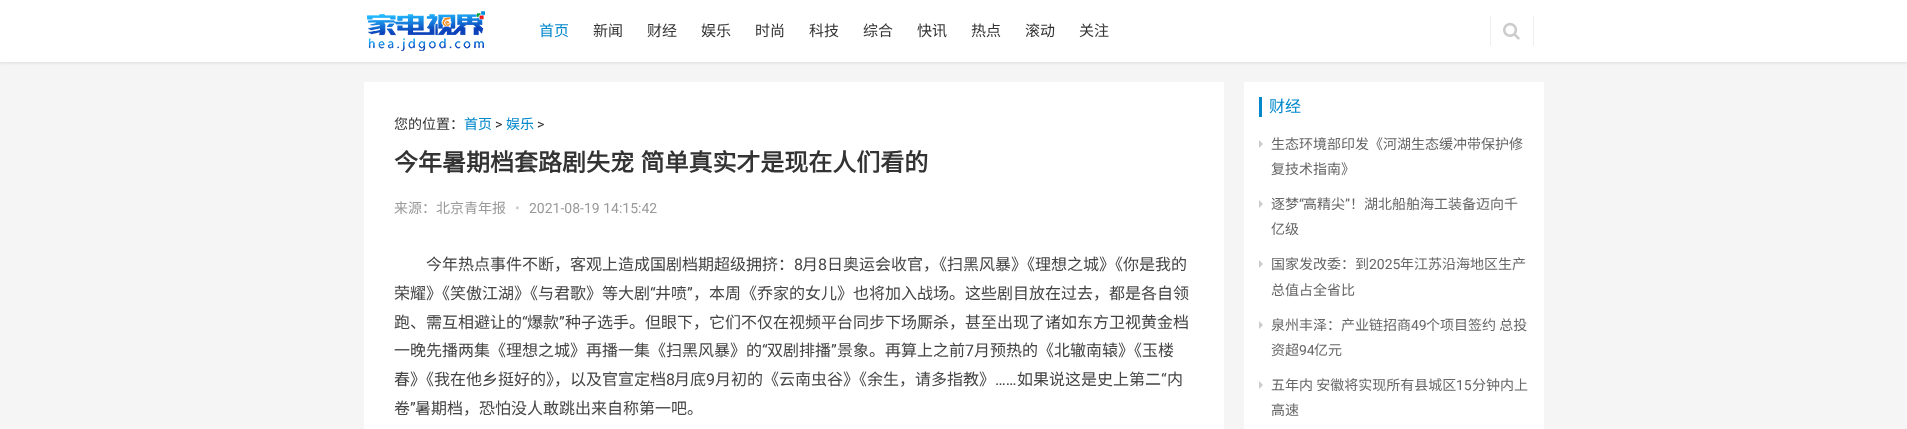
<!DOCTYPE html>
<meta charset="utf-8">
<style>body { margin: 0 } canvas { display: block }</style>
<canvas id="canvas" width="1907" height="429"></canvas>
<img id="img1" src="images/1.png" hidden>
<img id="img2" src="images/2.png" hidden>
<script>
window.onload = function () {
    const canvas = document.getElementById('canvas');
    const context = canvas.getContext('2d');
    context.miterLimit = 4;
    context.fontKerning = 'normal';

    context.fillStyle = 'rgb(245, 245, 245)';
    context.fillRect(0, 0, 1907, 429);
    context.fillStyle = 'rgba(0, 0, 0, 0.1)';
    context.filter = 'blur(1.5px)';
    context.beginPath();
    context.rect(-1, -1, 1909, 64);
    context.fill();
    context.filter = 'none';
    context.fillStyle = 'rgb(255, 255, 255)';
    context.fillRect(0, 0, 1907, 62);
    context.drawImage(document.getElementById('img1'), 367, 11, 118, 40);
    context.fillStyle = 'rgb(238, 238, 238)';
    context.fillRect(1533, 16, 1, 30);
    context.fillRect(1490, 16, 1, 30);
    context.drawImage(document.getElementById('img2'), 1503, 22, 17, 18);
    context.fillStyle = 'rgb(255, 255, 255)';
    context.fillRect(364, 82, 860, 347);
    context.fillRect(1244, 82, 300, 347);
    context.fillStyle = 'rgb(0, 136, 204)';
    context.fillRect(1259, 97, 3, 20);
    context.fillStyle = 'rgb(204, 204, 204)';
    context.beginPath();
    context.moveTo(1259, 148);
    context.lineTo(1259, 140);
    context.lineTo(1263, 144);
    context.closePath();
    context.fill();
    context.beginPath();
    context.moveTo(1259, 208);
    context.lineTo(1259, 200);
    context.lineTo(1263, 204);
    context.closePath();
    context.fill();
    context.beginPath();
    context.moveTo(1259, 268);
    context.lineTo(1259, 260);
    context.lineTo(1263, 264);
    context.closePath();
    context.fill();
    context.beginPath();
    context.moveTo(1259, 329);
    context.lineTo(1259, 321);
    context.lineTo(1263, 325);
    context.closePath();
    context.fill();
    context.beginPath();
    context.moveTo(1259, 389);
    context.lineTo(1259, 381);
    context.lineTo(1263, 385);
    context.closePath();
    context.fill();
    context.font = '15px Noto Sans CJK SC';
    context.fillStyle = 'rgb(0, 136, 204)';
    context.fillText('首页', 539, 36);
    context.fillStyle = 'rgb(51, 51, 51)';
    context.fillText('新闻', 593, 36);
    context.fillText('财经', 647, 36);
    context.fillText('娱乐', 701, 36);
    context.fillText('时尚', 755, 36);
    context.fillText('科技', 809, 36);
    context.fillText('综合', 863, 36);
    context.fillText('快讯', 917, 36);
    context.fillText('热点', 971, 36);
    context.fillText('滚动', 1025, 36);
    context.fillText('关注', 1079, 36);
    context.font = '14px Noto Sans CJK SC';
    context.fillText('您的位置：', 394, 129);
    context.fillStyle = 'rgb(0, 136, 204)';
    context.fillText('首页', 464, 129);
    context.font = '14px Roboto';
    context.fillStyle = 'rgb(51, 51, 51)';
    context.fillText('>', 495, 129);
    context.font = '14px Noto Sans CJK SC';
    context.fillStyle = 'rgb(0, 136, 204)';
    context.fillText('娱乐', 506, 129);
    context.font = '14px Roboto';
    context.fillStyle = 'rgb(51, 51, 51)';
    context.fillText('>', 537, 129);
    context.wordSpacing = '1px';
    context.font = 'bold 24px Noto Sans CJK SC';
    context.fillText('今年暑期档套路剧失宠 简单真实才是现在人们看的', 394, 171);
    context.wordSpacing = '0px';
    context.font = '14px Noto Sans CJK SC';
    context.fillStyle = 'rgb(153, 153, 153)';
    context.fillText('来源：北京青年报', 394, 213);
    context.font = '14px Roboto';
    context.fillStyle = 'rgb(204, 204, 204)';
    context.fillText('•', 515, 213);
    context.fillStyle = 'rgb(153, 153, 153)';
    context.fillText('2021-08-19 14:15:42', 529, 213);
    context.font = '16px Noto Sans CJK SC';
    context.fillStyle = 'rgb(68, 68, 68)';
    context.fillText('今年热点事件不断，客观上造成国剧档期超级拥挤：', 426, 270);
    context.font = '16px Roboto';
    context.fillText('8', 794, 270);
    context.font = '16px Noto Sans CJK SC';
    context.fillText('月', 802, 270);
    context.font = '16px Roboto';
    context.fillText('8', 818, 270);
    context.font = '16px Noto Sans CJK SC';
    context.fillText('日奥运会收官，《扫黑风暴》《理想之城》《你是我的', 827, 270);
    context.fillText('荣耀》《笑傲江湖》《与君歌》等大剧', 394, 299);
    context.font = '16px Roboto';
    context.fillText('“', 650, 299);
    context.font = '16px Noto Sans CJK SC';
    context.fillText('井喷', 655, 299);
    context.font = '16px Roboto';
    context.fillText('”', 687, 299);
    context.font = '16px Noto Sans CJK SC';
    context.fillText('，本周《乔家的女儿》也将加入战场。这些剧目放在过去，都是各自领', 693, 299);
    context.fillText('跑、需互相避让的', 394, 328);
    context.font = '16px Roboto';
    context.fillText('“', 522, 328);
    context.font = '16px Noto Sans CJK SC';
    context.fillText('爆款', 527, 328);
    context.font = '16px Roboto';
    context.fillText('”', 559, 328);
    context.font = '16px Noto Sans CJK SC';
    context.fillText('种子选手。但眼下，它们不仅在视频平台同步下场厮杀，甚至出现了诸如东方卫视黄金档', 565, 328);
    context.fillText('一晚先播两集《理想之城》再播一集《扫黑风暴》的', 394, 356);
    context.font = '16px Roboto';
    context.fillText('“', 762, 356);
    context.font = '16px Noto Sans CJK SC';
    context.fillText('双剧排播', 767, 356);
    context.font = '16px Roboto';
    context.fillText('”', 831, 356);
    context.font = '16px Noto Sans CJK SC';
    context.fillText('景象。再算上之前', 837, 356);
    context.font = '16px Roboto';
    context.fillText('7', 965, 356);
    context.font = '16px Noto Sans CJK SC';
    context.fillText('月预热的《北辙南辕》《玉楼', 974, 356);
    context.fillText('春》《我在他乡挺好的》，以及官宣定档', 394, 385);
    context.font = '16px Roboto';
    context.fillText('8', 666, 385);
    context.font = '16px Noto Sans CJK SC';
    context.fillText('月底', 674, 385);
    context.font = '16px Roboto';
    context.fillText('9', 706, 385);
    context.font = '16px Noto Sans CJK SC';
    context.fillText('月初的《云南虫谷》《余生，请多指教》', 715, 385);
    context.font = '16px Roboto';
    context.fillText('……', 995, 385);
    context.font = '16px Noto Sans CJK SC';
    context.fillText('如果说这是史上第二', 1017, 385);
    context.font = '16px Roboto';
    context.fillText('“', 1161, 385);
    context.font = '16px Noto Sans CJK SC';
    context.fillText('内', 1167, 385);
    context.fillText('卷', 394, 414);
    context.font = '16px Roboto';
    context.fillText('”', 410, 414);
    context.font = '16px Noto Sans CJK SC';
    context.fillText('暑期档，恐怕没人敢跳出来自称第一吧。', 415, 414);
    context.fillStyle = 'rgb(0, 136, 204)';
    context.fillText('财经', 1269, 112);
    context.font = '14px Noto Sans CJK SC';
    context.fillStyle = 'rgb(102, 102, 102)';
    context.fillText('生态环境部印发《河湖生态缓冲带保护修', 1271, 149);
    context.fillText('复技术指南》', 1271, 174);
    context.fillText('逐梦', 1271, 209);
    context.font = '14px Roboto';
    context.fillText('“', 1299, 209);
    context.font = '14px Noto Sans CJK SC';
    context.fillText('高精尖', 1303, 209);
    context.font = '14px Roboto';
    context.fillText('”', 1345, 209);
    context.font = '14px Noto Sans CJK SC';
    context.fillText('！湖北船舶海工装备迈向千', 1350, 209);
    context.fillText('亿级', 1271, 234);
    context.fillText('国家发改委：到', 1271, 269);
    context.font = '14px Roboto';
    context.fillText('2025', 1369, 269);
    context.font = '14px Noto Sans CJK SC';
    context.fillText('年江苏沿海地区生产', 1400, 269);
    context.fillText('总值占全省比', 1271, 295);
    context.fillText('泉州丰泽：产业链招商', 1271, 330);
    context.font = '14px Roboto';
    context.fillText('49', 1411, 330);
    context.font = '14px Noto Sans CJK SC';
    context.fillText('个项目签约 总投', 1426, 330);
    context.fillText('资超', 1271, 355);
    context.font = '14px Roboto';
    context.fillText('94', 1299, 355);
    context.font = '14px Noto Sans CJK SC';
    context.fillText('亿元', 1314, 355);
    context.fillText('五年内 安徽将实现所有县城区', 1271, 390);
    context.font = '14px Roboto';
    context.fillText('15', 1456, 390);
    context.font = '14px Noto Sans CJK SC';
    context.fillText('分钟内上', 1472, 390);
    context.fillText('高速', 1271, 415);
};
</script>
